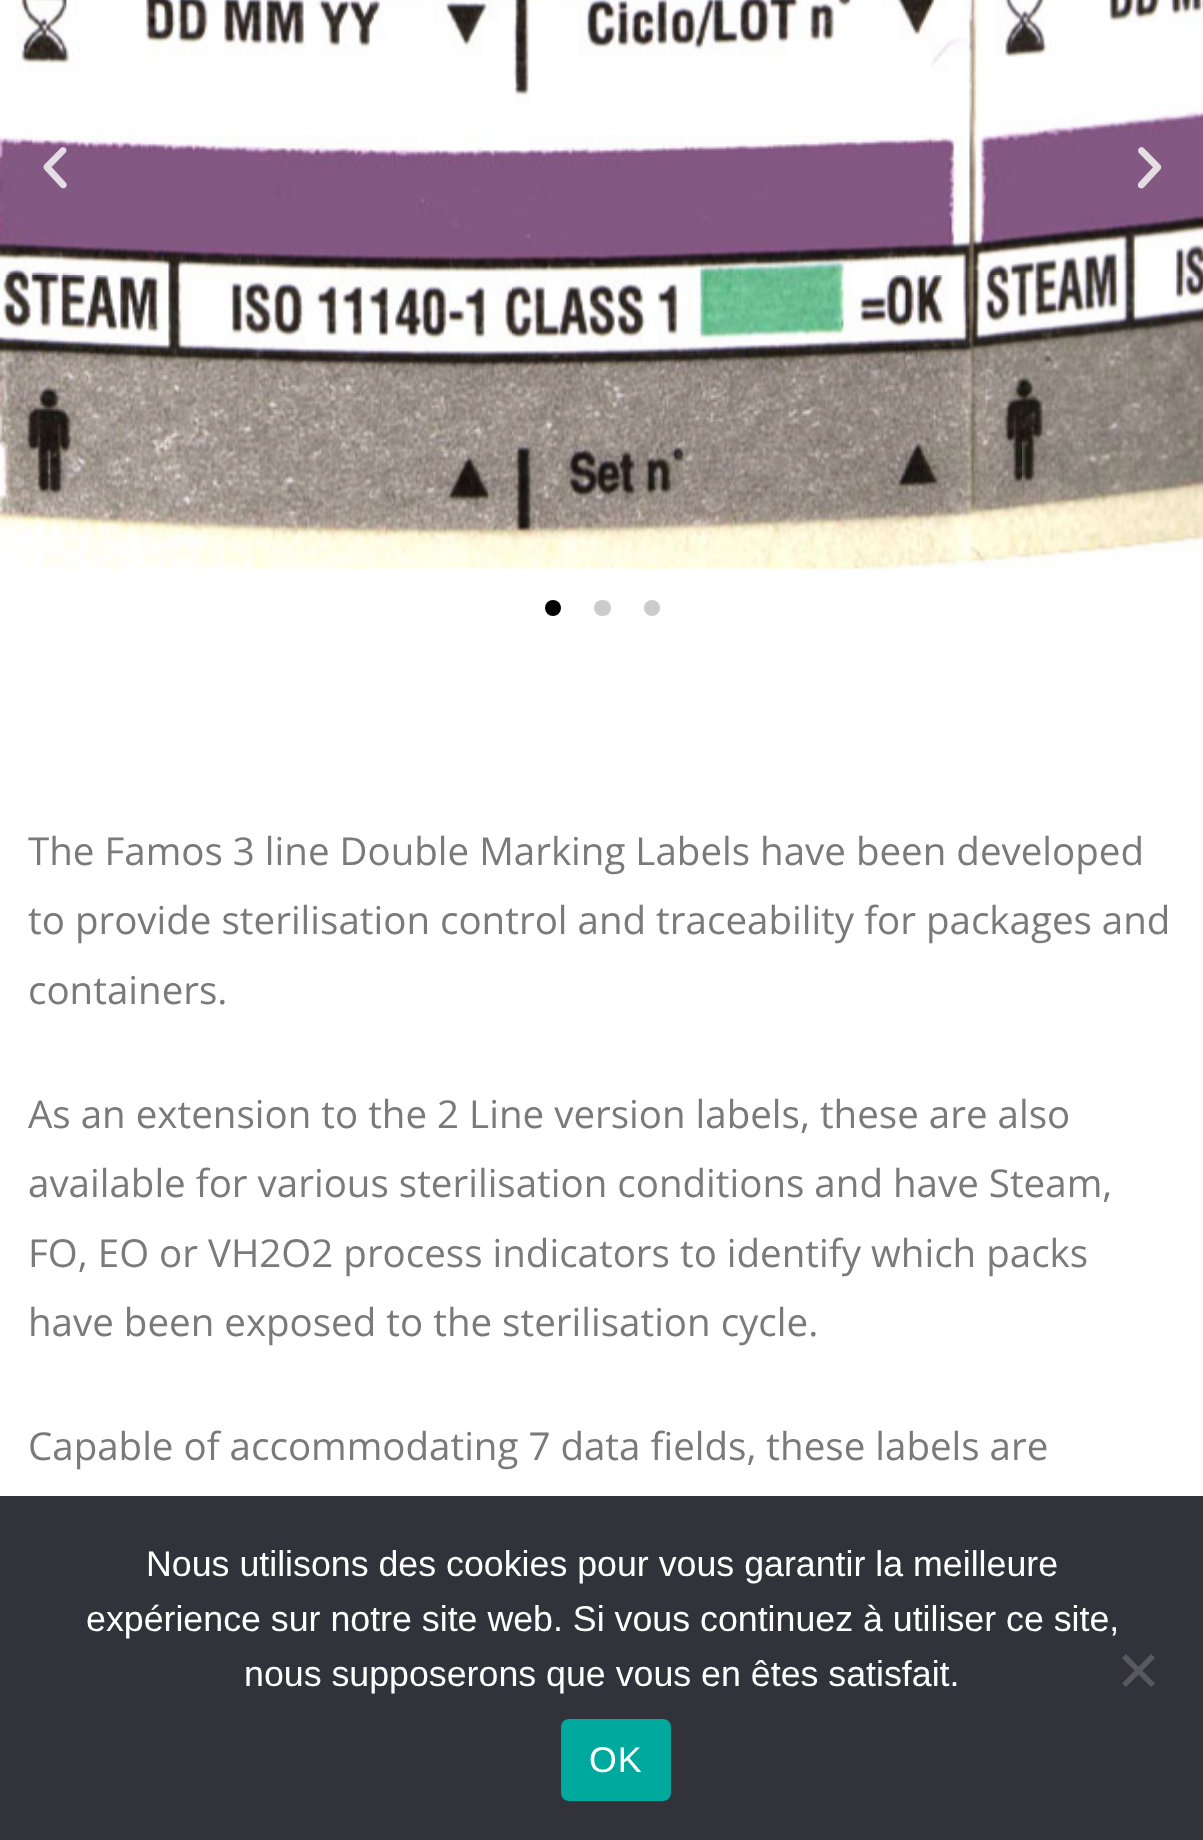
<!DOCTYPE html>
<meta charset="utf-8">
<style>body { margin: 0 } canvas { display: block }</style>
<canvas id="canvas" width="1203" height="1840"></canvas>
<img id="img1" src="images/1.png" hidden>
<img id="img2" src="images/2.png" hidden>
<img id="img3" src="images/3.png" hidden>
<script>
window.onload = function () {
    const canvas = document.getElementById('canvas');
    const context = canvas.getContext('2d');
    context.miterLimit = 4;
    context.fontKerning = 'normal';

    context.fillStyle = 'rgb(255, 255, 255)';
    context.fillRect(0, 0, 1203, 1840);
    context.drawImage(document.getElementById('img1'), 0, 0, 1203, 569);
    context.drawImage(document.getElementById('img2'), 43, 147, 24, 42);
    context.drawImage(document.getElementById('img3'), 1137, 147, 25, 42);
    context.fillStyle = 'rgb(0, 0, 0)';
    context.beginPath();
    context.arc(553, 608, 8, 0, 2 * Math.PI);
    context.fill();
    context.fillStyle = 'rgb(204, 204, 204)';
    context.beginPath();
    context.roundRect(594, 600, 17, 16, 8);
    context.fill();
    context.beginPath();
    context.arc(652, 608, 8, 0, 2 * Math.PI);
    context.fill();
    context.fillStyle = 'rgb(50, 50, 58)';
    context.fillRect(0, 1496, 1203, 344);
    context.fillStyle = 'rgb(89, 89, 93)';
    context.beginPath();
    context.moveTo(1151, 1654);
    context.lineTo(1155, 1658);
    context.lineTo(1126, 1687);
    context.lineTo(1122, 1683.5);
    context.closePath();
    context.fill();
    context.beginPath();
    context.moveTo(1122, 1658);
    context.lineTo(1126, 1654);
    context.lineTo(1155, 1683.5);
    context.lineTo(1151, 1687);
    context.closePath();
    context.fill();
    context.fillStyle = 'rgb(0, 169, 157)';
    context.beginPath();
    context.roundRect(561, 1719, 110, 82, 8);
    context.fill();
    context.font = '38.5px Open Sans';
    context.fillStyle = 'rgb(122, 122, 122)';
    context.fillText('The Famos 3 line Double Marking Labels have been developed', 28, 865);
    context.fillText('to provide sterilisation control and traceability for packages and', 28, 934);
    context.fillText('containers.', 28, 1004);
    context.fillText('As an extension to the 2 Line version labels, these are also', 28, 1128);
    context.fillText('available for various sterilisation conditions and have Steam,', 28, 1197);
    context.fillText('FO, EO or VH2O2 process indicators to identify which packs', 28, 1267);
    context.fillText('have been exposed to the sterilisation cycle.', 28, 1336);
    context.fillText('Capable of accommodating 7 data fields, these labels are', 28, 1460);
    context.font = '35.75px Liberation Sans';
    context.fillStyle = 'rgb(255, 255, 255)';
    context.fillText('Nous utilisons des cookies pour vous garantir la meilleure', 146, 1576);
    context.fillText('expérience sur notre site web. Si vous continuez à utiliser ce site,', 86, 1631);
    context.fillText('nous supposerons que vous en êtes satisfait.', 244, 1686);
    context.letterSpacing = '1px';
    context.fillText('OK', 589, 1772);
};
</script>
